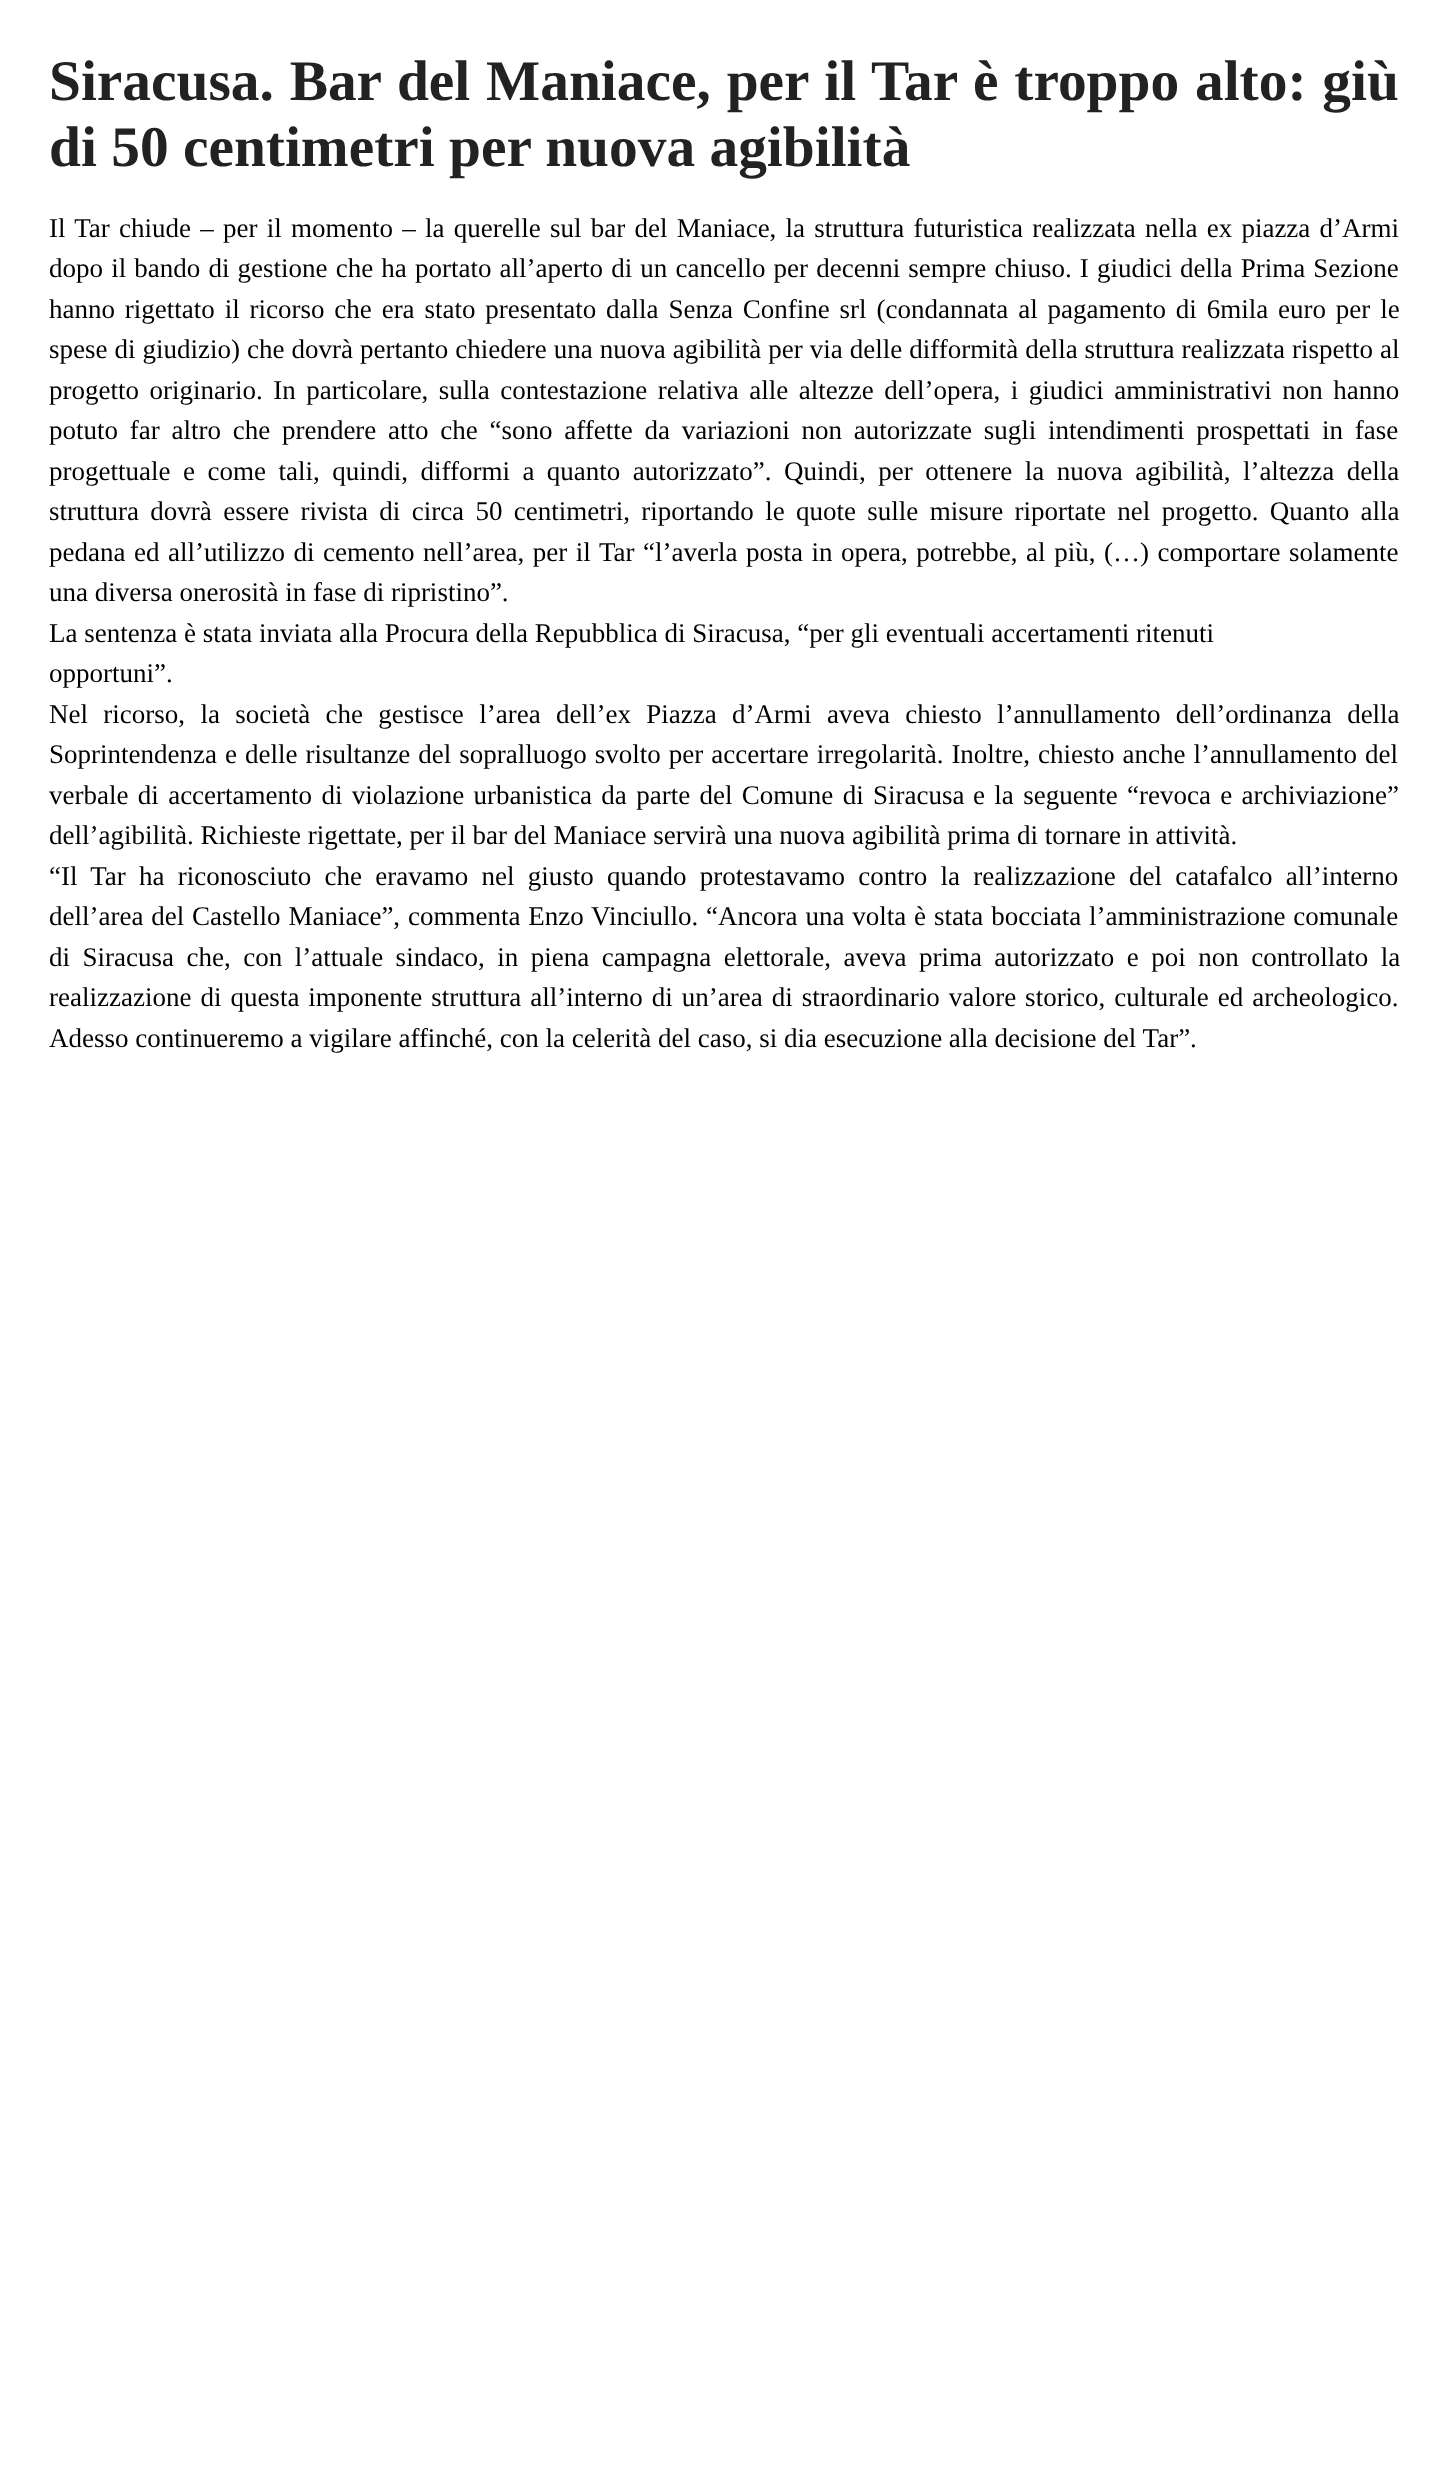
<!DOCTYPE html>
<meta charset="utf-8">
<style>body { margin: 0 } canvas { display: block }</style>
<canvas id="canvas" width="1447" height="2491"></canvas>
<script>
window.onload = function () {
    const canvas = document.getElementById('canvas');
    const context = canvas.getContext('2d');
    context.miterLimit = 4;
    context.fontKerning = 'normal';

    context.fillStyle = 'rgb(255, 255, 255)';
    context.fillRect(0, 0, 1447, 2491);
    context.wordSpacing = '1.5px';
    context.font = 'bold 57.4px Liberation Serif';
    context.fillStyle = 'rgb(34, 34, 34)';
    context.fillText('Siracusa. Bar del Maniace, per il Tar è troppo alto: giù', 49, 100);
    context.wordSpacing = '0px';
    context.fillText('di 50 centimetri per nuova agibilità', 49, 166);
    context.wordSpacing = '2.5px';
    context.font = '27px Liberation Serif';
    context.fillStyle = 'rgb(0, 0, 0)';
    context.fillText('Il Tar chiude – per il momento – la querelle sul bar del Maniace, la struttura futuristica realizzata nella ex piazza d’Armi', 49, 237);
    context.wordSpacing = '1.4px';
    context.fillText('dopo il bando di gestione che ha portato all’aperto di un cancello per decenni sempre chiuso. I giudici della Prima Sezione', 49, 277);
    context.wordSpacing = '3.1px';
    context.fillText('hanno rigettato il ricorso che era stato presentato dalla Senza Confine srl (condannata al pagamento di 6mila euro per le', 49, 318);
    context.wordSpacing = '0.25px';
    context.fillText('spese di giudizio) che dovrà pertanto chiedere una nuova agibilità per via delle difformità della struttura realizzata rispetto al', 49, 358);
    context.wordSpacing = '3.75px';
    context.fillText('progetto originario. In particolare, sulla contestazione relativa alle altezze dell’opera, i giudici amministrativi non hanno', 49, 399);
    context.wordSpacing = '5px';
    context.fillText('potuto far altro che prendere atto che “sono affette da variazioni non autorizzate sugli intendimenti prospettati in fase', 49, 439);
    context.wordSpacing = '5.75px';
    context.fillText('progettuale e come tali, quindi, difformi a quanto autorizzato”. Quindi, per ottenere la nuova agibilità, l’altezza della', 49, 480);
    context.wordSpacing = '4.6px';
    context.fillText('struttura dovrà essere rivista di circa 50 centimetri, riportando le quote sulle misure riportate nel progetto. Quanto alla', 49, 520);
    context.wordSpacing = '1.8px';
    context.fillText('pedana ed all’utilizzo di cemento nell’area, per il Tar “l’averla posta in opera, potrebbe, al più, (…) comportare solamente', 49, 561);
    context.wordSpacing = '0px';
    context.fillText('una diversa onerosità in fase di ripristino”.', 49, 601);
    context.fillText('La sentenza è stata inviata alla Procura della Repubblica di Siracusa, “per gli eventuali accertamenti ritenuti', 49, 642);
    context.fillText('opportuni”.', 49, 682);
    context.wordSpacing = '8.6px';
    context.fillText('Nel ricorso, la società che gestisce l’area dell’ex Piazza d’Armi aveva chiesto l’annullamento dell’ordinanza della', 49, 723);
    context.wordSpacing = '1.25px';
    context.fillText('Soprintendenza e delle risultanze del sopralluogo svolto per accertare irregolarità. Inoltre, chiesto anche l’annullamento del', 49, 763);
    context.wordSpacing = '2.6px';
    context.fillText('verbale di accertamento di violazione urbanistica da parte del Comune di Siracusa', 49, 804);
    context.fillText('e la seguente “revoca e archiviazione”', 973, 804);
    context.wordSpacing = '0px';
    context.fillText('dell’agibilità. Richieste rigettate, per il bar del Maniace servirà una nuova agibilità prima di tornare in attività.', 49, 844);
    context.wordSpacing = '6.5px';
    context.fillText('“Il Tar ha riconosciuto che eravamo nel giusto quando protestavamo contro la realizzazione del catafalco all’interno', 49, 885);
    context.wordSpacing = '1.1px';
    context.fillText('dell’area del Castello Maniace”, commenta Enzo Vinciullo. “Ancora una volta è stata bocciata l’amministrazione comunale', 49, 925);
    context.wordSpacing = '5.75px';
    context.fillText('di Siracusa che, con l’attuale sindaco, in piena campagna elettorale, aveva prima autorizzato e poi non controllato la', 49, 966);
    context.wordSpacing = '2.25px';
    context.fillText('realizzazione di questa imponente struttura all’interno di un’area di straordinario valore storico, culturale ed archeologico.', 49, 1006);
    context.wordSpacing = '0px';
    context.fillText('Adesso continueremo a vigilare affinché, con la celerità del caso, si dia esecuzione alla decisione del Tar”.', 49, 1047);
};
</script>
